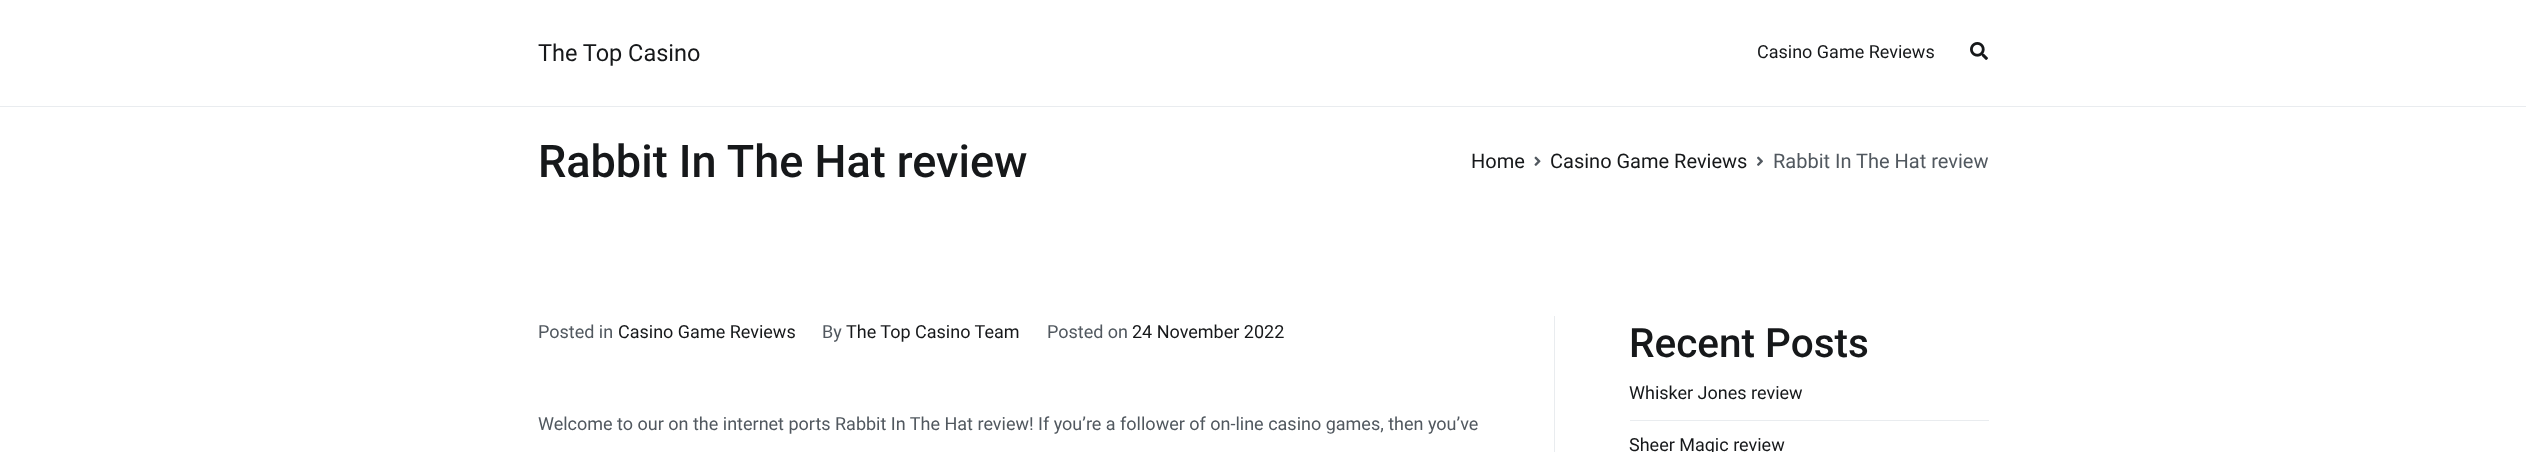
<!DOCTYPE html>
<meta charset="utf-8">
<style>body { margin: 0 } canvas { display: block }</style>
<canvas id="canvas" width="2526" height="452"></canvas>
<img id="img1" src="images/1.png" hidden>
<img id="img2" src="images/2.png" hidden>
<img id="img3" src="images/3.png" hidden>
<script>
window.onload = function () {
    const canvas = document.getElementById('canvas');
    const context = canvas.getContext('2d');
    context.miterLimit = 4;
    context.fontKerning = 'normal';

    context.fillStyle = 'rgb(255, 255, 255)';
    context.fillRect(0, 0, 2526, 452);
    context.fillStyle = 'rgb(233, 236, 239)';
    context.fillRect(0, 106, 2526, 1);
    context.drawImage(document.getElementById('img1'), 1970, 42, 18, 18);
    context.drawImage(document.getElementById('img2'), 1534, 156, 7, 10);
    context.drawImage(document.getElementById('img3'), 1757, 156, 6, 10);
    context.fillRect(1554, 316, 1, 136);
    context.fillRect(1630, 420, 359, 1);
    context.font = '23.5px Roboto';
    context.fillStyle = 'rgb(22, 24, 26)';
    context.fillText('The Top Casino', 538, 61);
    context.font = '18px Roboto';
    context.fillText('Casino Game Reviews', 1757, 58);
    context.font = '500 45px Roboto';
    context.fillText('Rabbit In The Hat review', 538, 177);
    context.font = '20px Roboto';
    context.fillText('Home', 1471, 168);
    context.fillText('Casino Game Reviews', 1550, 168);
    context.fillStyle = 'rgb(81, 88, 95)';
    context.fillText('Rabbit In The Hat review', 1773, 168);
    context.font = '18px Roboto';
    context.fillText('Posted in', 538, 338);
    context.fillStyle = 'rgb(22, 24, 26)';
    context.fillText('Casino Game Reviews', 618, 338);
    context.fillStyle = 'rgb(81, 88, 95)';
    context.fillText('By', 822, 338);
    context.fillStyle = 'rgb(22, 24, 26)';
    context.fillText('The Top Casino Team', 846, 338);
    context.fillStyle = 'rgb(81, 88, 95)';
    context.fillText('Posted on', 1047, 338);
    context.fillStyle = 'rgb(22, 24, 26)';
    context.fillText('24 November 2022', 1132, 338);
    context.fillStyle = 'rgb(81, 88, 95)';
    context.fillText('Welcome to our on the internet ports Rabbit In The Hat review! If you’re a follower of on-line casino games, then you’ve', 538, 430);
    context.font = '500 40.5px Roboto';
    context.fillStyle = 'rgb(22, 24, 26)';
    context.fillText('Recent Posts', 1629, 357);
    context.font = '18px Roboto';
    context.fillText('Whisker Jones review', 1629, 399);
    context.fillText('Sheer Magic review', 1629, 451);
};
</script>
